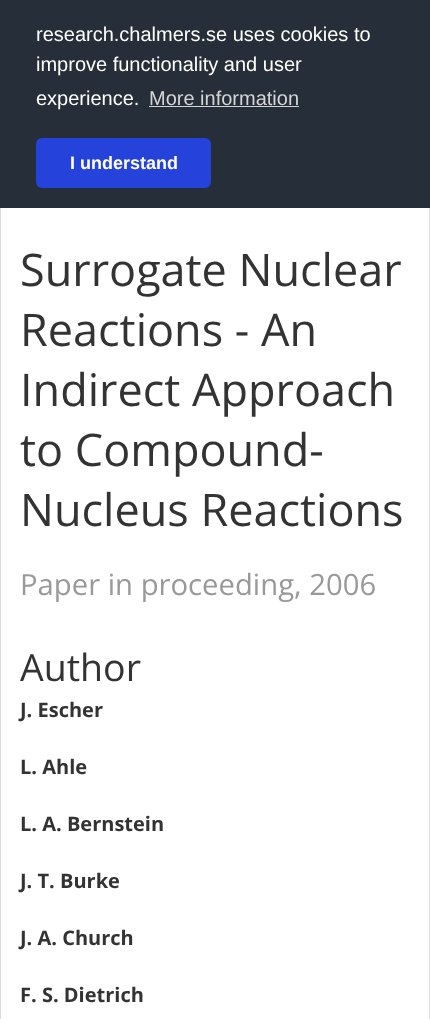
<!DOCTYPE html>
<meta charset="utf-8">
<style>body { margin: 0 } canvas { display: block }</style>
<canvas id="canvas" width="430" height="1019"></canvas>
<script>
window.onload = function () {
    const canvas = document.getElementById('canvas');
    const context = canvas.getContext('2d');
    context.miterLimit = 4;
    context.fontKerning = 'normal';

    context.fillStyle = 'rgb(255, 255, 255)';
    context.fillRect(0, 0, 430, 1019);
    context.fillStyle = 'rgb(37, 46, 57)';
    context.fillRect(0, 0, 430, 208);
    context.fillStyle = 'rgb(211, 213, 215)';
    context.fillRect(149, 106, 150, 1);
    context.fillStyle = 'rgb(37, 67, 218)';
    context.beginPath();
    context.roundRect(36, 138, 175, 50, 6);
    context.fill();
    context.fillStyle = 'rgb(220, 220, 220)';
    context.fillRect(429, 208, 1, 811);
    context.fillRect(0, 208, 1, 811);
    context.font = '20px Liberation Sans';
    context.fillStyle = 'rgb(255, 255, 255)';
    context.fillText('research.chalmers.se uses cookies to', 36, 41);
    context.fillText('improve functionality and user', 36, 71);
    context.fillText('experience.', 36, 105);
    context.fillStyle = 'rgb(211, 213, 215)';
    context.fillText('More information', 149, 105);
    context.font = 'bold 18px Liberation Sans';
    context.fillStyle = 'rgb(255, 255, 255)';
    context.fillText('I understand', 70, 169);
    context.font = '45px Open Sans';
    context.fillStyle = 'rgb(51, 51, 51)';
    context.fillText('Surrogate Nuclear', 20, 286);
    context.fillText('Reactions - An', 20, 346);
    context.fillText('Indirect Approach', 20, 406);
    context.fillText('to Compound-', 20, 466);
    context.fillText('Nucleus Reactions', 20, 526);
    context.font = '29.25px Open Sans';
    context.fillStyle = 'rgb(153, 153, 153)';
    context.fillText('Paper in proceeding, 2006', 20, 595);
    context.font = '37.5px Open Sans';
    context.fillStyle = 'rgb(51, 51, 51)';
    context.fillText('Author', 20, 681);
    context.font = 'bold 20px Open Sans';
    context.fillText('J. Escher', 20, 717);
    context.fillText('L. Ahle', 20, 774);
    context.fillText('L. A. Bernstein', 20, 831);
    context.fillText('J. T. Burke', 20, 888);
    context.fillText('J. A. Church', 20, 945);
    context.fillText('F. S. Dietrich', 20, 1002);
};
</script>
